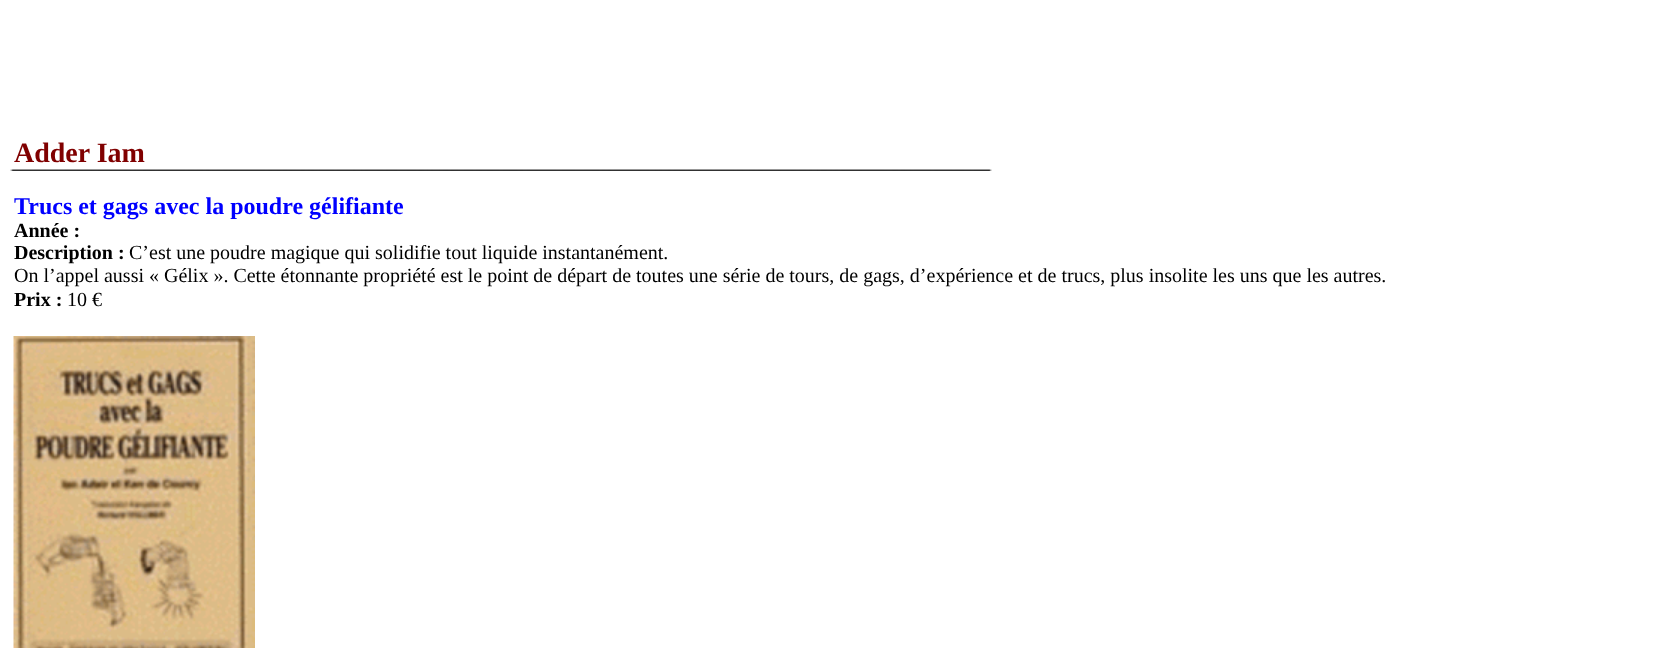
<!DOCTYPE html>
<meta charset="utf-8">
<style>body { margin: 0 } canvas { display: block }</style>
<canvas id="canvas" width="1666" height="648"></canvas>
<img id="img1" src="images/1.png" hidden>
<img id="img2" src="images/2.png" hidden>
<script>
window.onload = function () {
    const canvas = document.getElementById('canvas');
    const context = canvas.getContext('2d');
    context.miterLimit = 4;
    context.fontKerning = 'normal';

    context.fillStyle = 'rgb(255, 255, 255)';
    context.fillRect(0, 0, 1666, 648);
    context.drawImage(document.getElementById('img1'), 10, 169, 982, 2);
    context.drawImage(document.getElementById('img2'), 13, 336, 242, 312);
    context.font = 'bold 28px Liberation Serif';
    context.fillStyle = 'rgb(128, 0, 0)';
    context.fillText('Adder Iam', 14, 162);
    context.font = 'bold 24px Liberation Serif';
    context.fillStyle = 'rgb(0, 0, 255)';
    context.fillText('Trucs et gags avec la poudre gélifiante', 14, 214);
    context.font = 'bold 20px Liberation Serif';
    context.fillStyle = 'rgb(0, 0, 0)';
    context.fillText('Année :', 14, 237);
    context.fillText('Description :', 14, 259);
    context.font = '20px Liberation Serif';
    context.fillText('C’est une poudre magique qui solidifie tout liquide instantanément.', 129, 259);
    context.fillText('On l’appel aussi « Gélix ». Cette étonnante propriété est le point de départ de toutes une série de tours, de gags, d’expérience et de trucs, plus insolite les uns que les autres.', 14, 282);
    context.font = 'bold 20px Liberation Serif';
    context.fillText('Prix :', 14, 306);
    context.font = '20px Liberation Serif';
    context.fillText('10 €', 67, 306);
};
</script>
